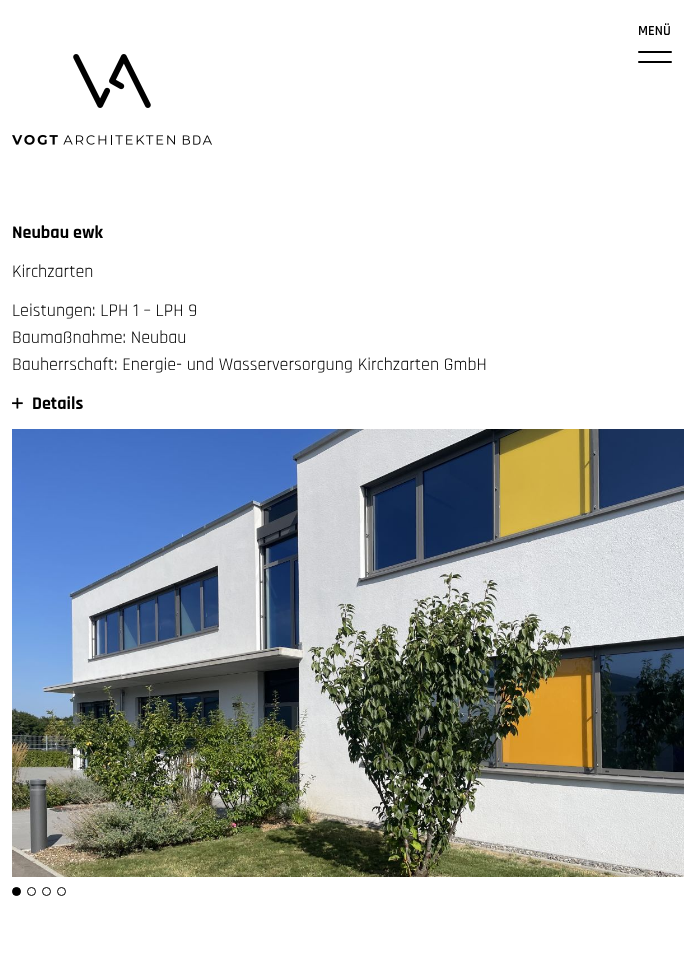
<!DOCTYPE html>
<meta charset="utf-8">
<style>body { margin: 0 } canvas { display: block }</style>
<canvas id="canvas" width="696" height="976"></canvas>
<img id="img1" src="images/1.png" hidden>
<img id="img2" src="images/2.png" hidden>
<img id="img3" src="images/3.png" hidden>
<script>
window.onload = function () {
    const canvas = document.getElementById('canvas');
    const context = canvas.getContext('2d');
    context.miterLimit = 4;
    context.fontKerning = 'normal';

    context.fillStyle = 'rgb(255, 255, 255)';
    context.fillRect(0, 0, 696, 976);
    context.fillStyle = 'rgb(0, 0, 0)';
    context.beginPath();
    context.roundRect(638, 51, 34, 2, 1);
    context.fill();
    context.beginPath();
    context.roundRect(638, 61, 34, 2, 1);
    context.fill();
    context.drawImage(document.getElementById('img1'), 12, 54, 200, 91);
    context.drawImage(document.getElementById('img2'), 12, 397, 11, 12);
    context.drawImage(document.getElementById('img3'), 12, 429, 672, 448);
    context.beginPath();
    context.arc(16.5, 891.5, 4, 0, 2 * Math.PI);
    context.fill();
    context.strokeStyle = 'rgb(0, 0, 0)';
    context.stroke();
    context.beginPath();
    context.arc(31.5, 891.5, 4, 0, 2 * Math.PI);
    context.stroke();
    context.beginPath();
    context.arc(46.5, 891.5, 4, 0, 2 * Math.PI);
    context.stroke();
    context.beginPath();
    context.arc(61.5, 891.5, 4, 0, 2 * Math.PI);
    context.stroke();
    context.font = '600 14px Rajdhani';
    context.fillText('MENÜ', 638, 35);
    context.font = 'bold 18px Rajdhani';
    context.fillText('Neubau ewk', 12, 238);
    context.font = '18px Rajdhani';
    context.fillText('Kirchzarten', 12, 277);
    context.fillText('Leistungen: LPH 1 – LPH 9', 12, 316);
    context.fillText('Baumaßnahme: Neubau', 12, 343);
    context.fillText('Bauherrschaft: Energie- und Wasserversorgung Kirchzarten GmbH', 12, 370);
    context.font = 'bold 18px Rajdhani';
    context.fillText('Details', 32, 409);
};
</script>
